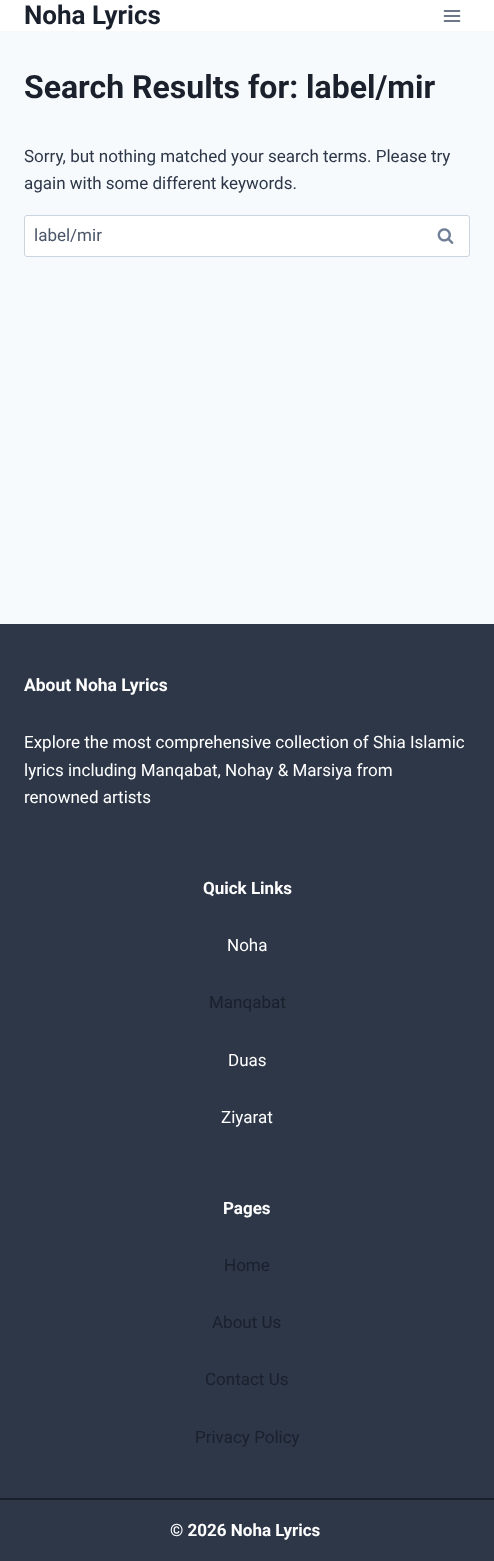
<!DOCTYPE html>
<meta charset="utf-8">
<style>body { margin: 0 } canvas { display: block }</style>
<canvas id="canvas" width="494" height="1561"></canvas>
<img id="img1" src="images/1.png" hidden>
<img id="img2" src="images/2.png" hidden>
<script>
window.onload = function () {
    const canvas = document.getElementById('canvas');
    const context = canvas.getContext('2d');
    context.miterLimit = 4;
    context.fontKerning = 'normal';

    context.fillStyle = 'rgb(247, 250, 252)';
    context.fillRect(0, 0, 494, 1561);
    context.fillStyle = 'rgb(255, 255, 255)';
    context.fillRect(0, 0, 494, 31);
    context.drawImage(document.getElementById('img1'), 443, 10, 18, 12);
    context.beginPath();
    context.roundRect(24.5, 215.5, 445, 41, 2.5);
    context.fill();
    context.strokeStyle = 'rgb(203, 213, 224)';
    context.stroke();
    context.drawImage(document.getElementById('img2'), 437, 228, 17, 16);
    context.fillStyle = 'rgb(45, 55, 72)';
    context.fillRect(0, 624, 494, 937);
    context.fillStyle = 'rgb(26, 32, 44)';
    context.fillRect(0, 1498, 494, 2);
    context.font = 'bold 26px Roboto';
    context.fillText('Noha Lyrics', 24, 24);
    context.font = 'bold 32px Roboto';
    context.fillText('Search Results for: label/mir', 24, 98);
    context.font = '17px Roboto';
    context.fillStyle = 'rgb(45, 55, 72)';
    context.fillText('Sorry, but nothing matched your search terms. Please try', 24, 162);
    context.fillText('again with some different keywords.', 24, 189);
    context.fillStyle = 'rgb(74, 85, 104)';
    context.fillText('label/mir', 34, 241);
    context.font = 'bold 17.5px Roboto';
    context.fillStyle = 'rgb(255, 255, 255)';
    context.fillText('About Noha Lyrics', 24, 691);
    context.font = '17px Roboto';
    context.fillText('Explore the most comprehensive collection of Shia Islamic', 24, 748);
    context.fillText('lyrics including Manqabat, Nohay & Marsiya from', 24, 776);
    context.fillText('renowned artists', 24, 803);
    context.font = 'bold 17px Roboto';
    context.fillText('Quick Links', 203, 894);
    context.font = '17px Roboto';
    context.fillText('Noha', 227, 951);
    context.fillStyle = 'rgb(26, 32, 44)';
    context.fillText('Manqabat', 209, 1008);
    context.fillStyle = 'rgb(255, 255, 255)';
    context.fillText('Duas', 228, 1066);
    context.fillText('Ziyarat', 221, 1123);
    context.font = 'bold 17px Roboto';
    context.fillText('Pages', 223, 1214);
    context.font = '17px Roboto';
    context.fillStyle = 'rgb(26, 32, 44)';
    context.fillText('Home', 224, 1271);
    context.fillText('About Us', 212, 1328);
    context.fillText('Contact Us', 205, 1385);
    context.fillText('Privacy Policy', 195, 1443);
    context.font = 'bold 17px Roboto';
    context.fillStyle = 'rgb(255, 255, 255)';
    context.fillText('© 2026 Noha Lyrics', 170, 1536);
};
</script>
